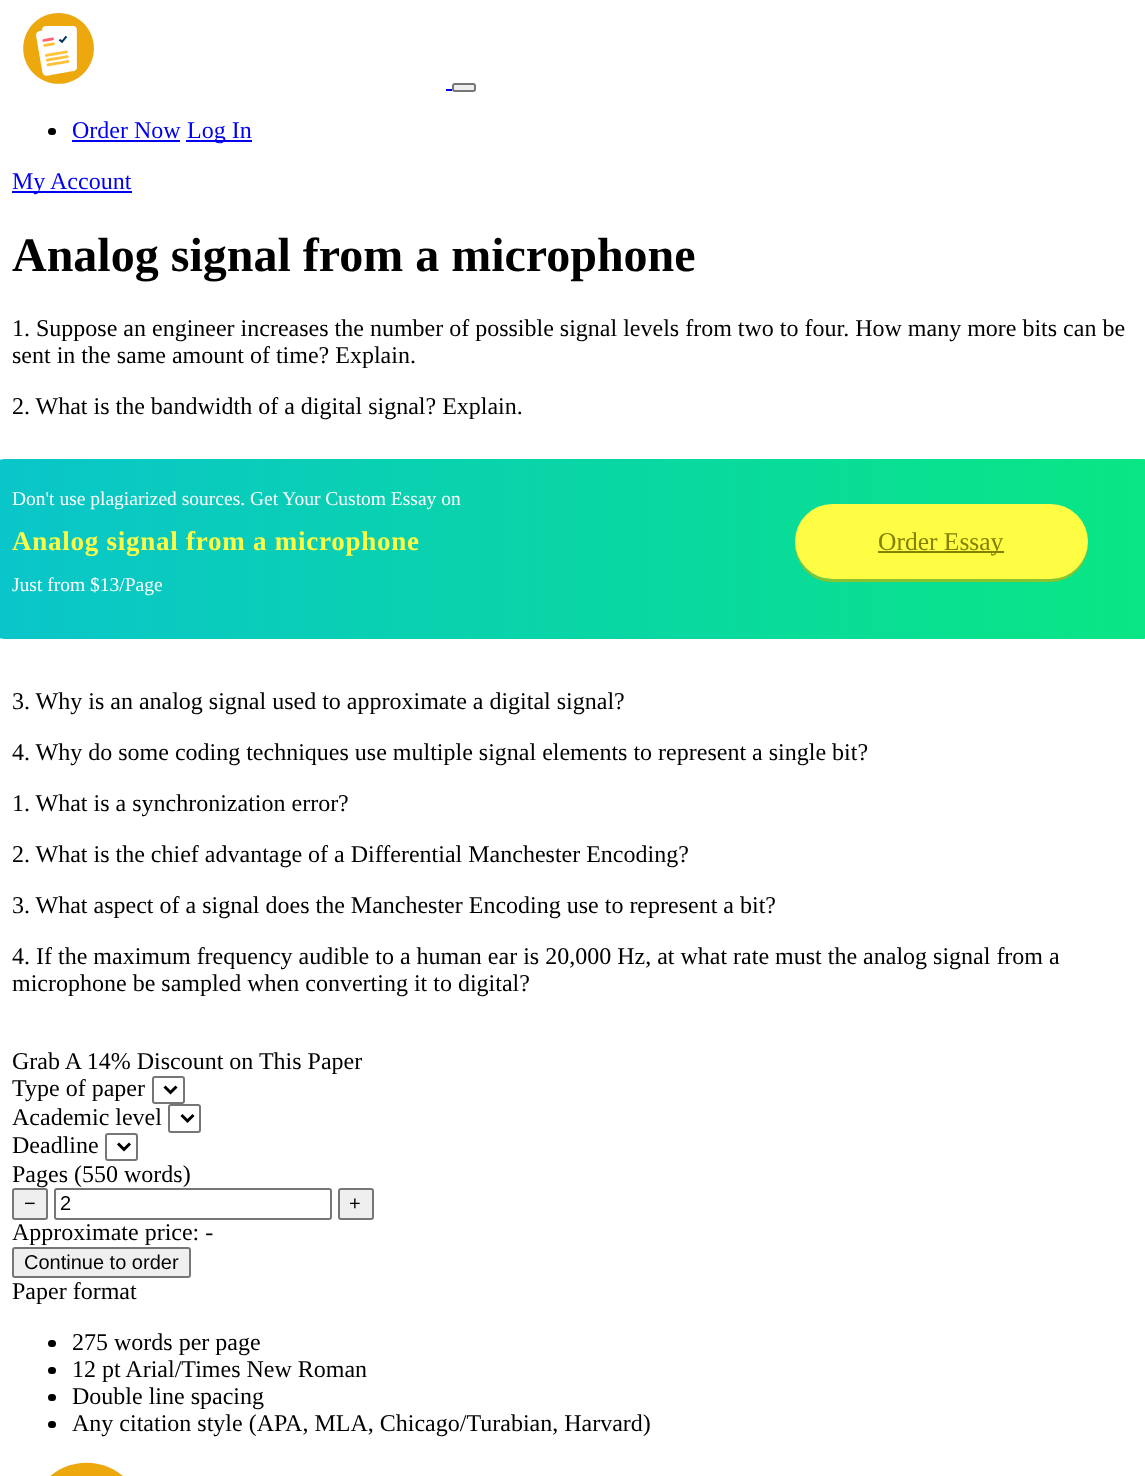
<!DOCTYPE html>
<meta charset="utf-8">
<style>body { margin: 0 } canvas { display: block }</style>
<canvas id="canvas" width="1145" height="1476"></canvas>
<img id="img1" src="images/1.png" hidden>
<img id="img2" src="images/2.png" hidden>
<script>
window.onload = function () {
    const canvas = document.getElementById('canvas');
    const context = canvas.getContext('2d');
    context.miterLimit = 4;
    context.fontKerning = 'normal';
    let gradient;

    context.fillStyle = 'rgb(255, 255, 255)';
    context.fillRect(0, 0, 1145, 1476);
    context.drawImage(document.getElementById('img1'), 23, 13, 71, 71);
    context.fillStyle = 'rgb(0, 0, 238)';
    context.fillRect(446, 89, 6, 2);
    context.fillStyle = 'rgb(239, 239, 239)';
    context.beginPath();
    context.roundRect(453, 84, 22, 7, 2);
    context.fill();
    context.strokeStyle = 'rgb(118, 118, 118)';
    context.lineWidth = 2;
    context.stroke();
    context.fillStyle = 'rgb(0, 0, 0)';
    context.beginPath();
    context.roundRect(48, 128, 8, 7, 3.5);
    context.fill();
    context.fillStyle = 'rgb(0, 0, 238)';
    context.fillRect(72, 140, 108, 2);
    context.fillRect(186, 140, 66, 2);
    context.fillRect(12, 191, 120, 2);
    gradient = context.createLinearGradient(-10, 549, 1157, 549);
    gradient.addColorStop(0, 'rgb(10, 197, 202)');
    gradient.addColorStop(1, 'rgb(9, 230, 131)');
    context.fillStyle = gradient;
    context.beginPath();
    context.roundRect(-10, 459, 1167, 180, 15);
    context.fill();
    context.fillStyle = 'rgb(137, 195, 46)';
    context.beginPath();
    context.moveTo(795, 543);
    context.lineTo(795, 544);
    context.bezierCurveTo(795, 565, 812, 582, 832, 582);
    context.lineTo(1050, 582);
    context.bezierCurveTo(1071, 582, 1088, 565, 1088, 544);
    context.lineTo(1087, 537);
    context.lineTo(1088, 542);
    context.bezierCurveTo(1088, 562, 1071, 579, 1050, 579);
    context.lineTo(832, 579);
    context.bezierCurveTo(812, 579, 796, 563, 795, 543);
    context.closePath();
    context.fill();
    context.fillStyle = 'rgb(255, 252, 68)';
    context.beginPath();
    context.roundRect(795, 504, 293, 75, 37.5);
    context.fill();
    context.fillStyle = 'rgb(131, 129, 0)';
    context.fillRect(878, 551, 126, 2);
    context.beginPath();
    context.roundRect(153, 1077, 31, 26, 2);
    context.stroke();
    context.beginPath();
    context.moveTo(164.5, 1086.5);
    context.lineTo(170.5, 1092.5);
    context.lineTo(176.5, 1086.5);
    context.strokeStyle = 'rgb(0, 0, 0)';
    context.lineWidth = 3;
    context.stroke();
    context.beginPath();
    context.roundRect(169, 1105, 31, 27, 2);
    context.strokeStyle = 'rgb(118, 118, 118)';
    context.lineWidth = 2;
    context.stroke();
    context.beginPath();
    context.moveTo(181.5, 1115);
    context.lineTo(187.5, 1121);
    context.lineTo(193.5, 1115);
    context.strokeStyle = 'rgb(0, 0, 0)';
    context.lineWidth = 3;
    context.stroke();
    context.beginPath();
    context.roundRect(106, 1134, 31, 26, 2);
    context.strokeStyle = 'rgb(118, 118, 118)';
    context.lineWidth = 2;
    context.stroke();
    context.beginPath();
    context.moveTo(118, 1143.5);
    context.lineTo(124, 1149.5);
    context.lineTo(130, 1143.5);
    context.strokeStyle = 'rgb(0, 0, 0)';
    context.lineWidth = 3;
    context.stroke();
    context.fillStyle = 'rgb(239, 239, 239)';
    context.beginPath();
    context.roundRect(13, 1189, 34, 30, 2);
    context.fill();
    context.strokeStyle = 'rgb(118, 118, 118)';
    context.lineWidth = 2;
    context.stroke();
    context.beginPath();
    context.roundRect(55, 1189, 276, 30, 2);
    context.stroke();
    context.beginPath();
    context.roundRect(339, 1189, 34, 30, 2);
    context.fill();
    context.stroke();
    context.beginPath();
    context.roundRect(13, 1248, 177, 29, 2);
    context.fill();
    context.stroke();
    context.fillStyle = 'rgb(0, 0, 0)';
    context.beginPath();
    context.roundRect(48, 1340, 8, 7, 3.5);
    context.fill();
    context.beginPath();
    context.roundRect(48, 1367, 8, 7, 3.5);
    context.fill();
    context.beginPath();
    context.roundRect(48, 1394, 8, 7, 3.5);
    context.fill();
    context.beginPath();
    context.roundRect(48, 1421, 8, 7, 3.5);
    context.fill();
    context.drawImage(document.getElementById('img2'), 50, 1462, 73, 14);
    context.font = '24px Liberation Serif';
    context.fillStyle = 'rgb(0, 0, 238)';
    context.fillText('Order Now', 72, 138);
    context.fillText('Log In', 187, 138);
    context.fillText('My Account', 12, 189);
    context.font = 'bold 48px Liberation Serif';
    context.fillStyle = 'rgb(0, 0, 0)';
    context.fillText('Analog signal from a microphone', 12, 271);
    context.font = '24px Liberation Serif';
    context.fillText('1. Suppose an engineer increases the number of possible signal levels from two to four. How many more bits can be', 12, 336);
    context.fillText('sent in the same amount of time? Explain.', 12, 363);
    context.fillText('2. What is the bandwidth of a digital signal? Explain.', 12, 414);
    context.font = '19.5px Liberation Serif';
    context.fillStyle = 'rgb(255, 255, 255)';
    context.fillText('Don\'t use plagiarized sources. Get Your Custom Essay on', 12, 505);
    context.letterSpacing = '0.75px';
    context.font = 'bold 27px Liberation Serif';
    context.fillStyle = 'rgb(255, 252, 69)';
    context.fillText('Analog signal from a microphone', 12, 550);
    context.letterSpacing = '0px';
    context.font = '19.5px Liberation Serif';
    context.fillStyle = 'rgb(255, 255, 255)';
    context.fillText('Just from $13/Page', 12, 591);
    context.font = '25.5px Liberation Serif';
    context.fillStyle = 'rgb(131, 129, 0)';
    context.fillText('Order Essay', 878, 550);
    context.font = '24px Liberation Serif';
    context.fillStyle = 'rgb(0, 0, 0)';
    context.fillText('3. Why is an analog signal used to approximate a digital signal?', 12, 709);
    context.fillText('4. Why do some coding techniques use multiple signal elements to represent a single bit?', 12, 760);
    context.fillText('1. What is a synchronization error?', 12, 811);
    context.fillText('2. What is the chief advantage of a Differential Manchester Encoding?', 12, 862);
    context.fillText('3. What aspect of a signal does the Manchester Encoding use to represent a bit?', 12, 913);
    context.fillText('4. If the maximum frequency audible to a human ear is 20,000 Hz, at what rate must the analog signal from a', 12, 964);
    context.fillText('microphone be sampled when converting it to digital?', 12, 991);
    context.fillText('Grab A 14% Discount on This Paper', 12, 1069);
    context.fillText('Type of paper', 12, 1096);
    context.fillText('Academic level', 12, 1125);
    context.fillText('Deadline', 12, 1153);
    context.fillText('Pages (550 words)', 12, 1182);
    context.font = '20px Liberation Sans';
    context.fillText('−', 24, 1210);
    context.fillText('2', 60, 1210);
    context.fillText('+', 349, 1210);
    context.font = '24px Liberation Serif';
    context.fillText('Approximate price: -', 12, 1240);
    context.font = '20px Liberation Sans';
    context.fillText('Continue to order', 24, 1269);
    context.font = '24px Liberation Serif';
    context.fillText('Paper format', 12, 1299);
    context.fillText('275 words per page', 72, 1350);
    context.fillText('12 pt Arial/Times New Roman', 72, 1377);
    context.fillText('Double line spacing', 72, 1404);
    context.fillText('Any citation style (APA, MLA, Chicago/Turabian, Harvard)', 72, 1431);
};
</script>
